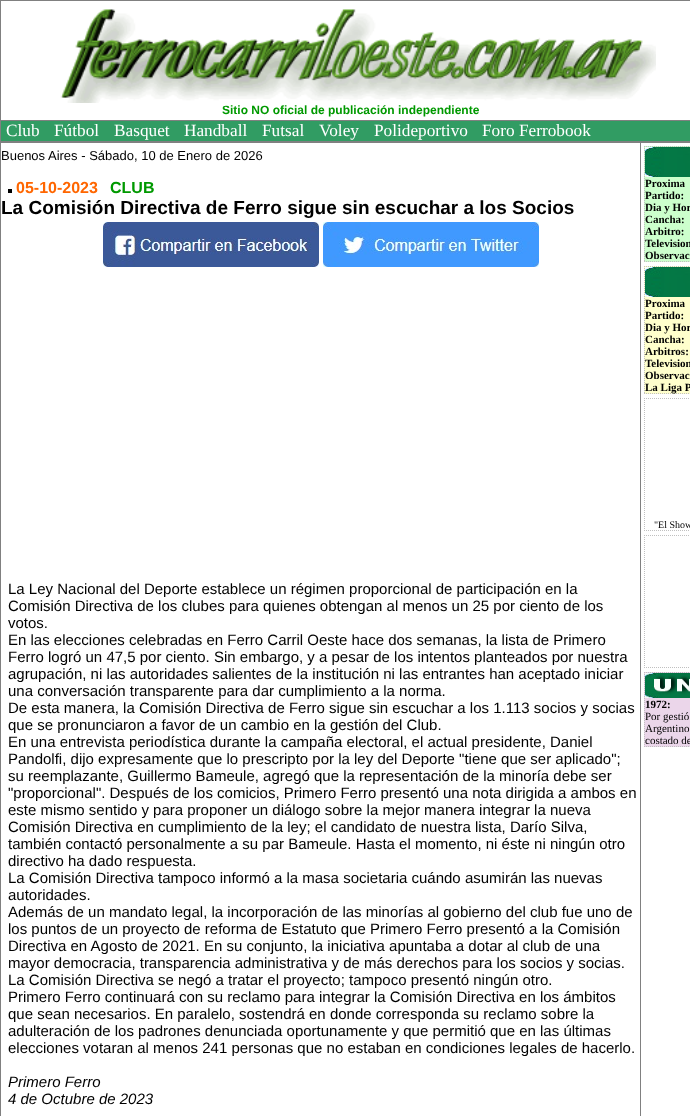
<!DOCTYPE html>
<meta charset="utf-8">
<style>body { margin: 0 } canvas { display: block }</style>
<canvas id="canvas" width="690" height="1116"></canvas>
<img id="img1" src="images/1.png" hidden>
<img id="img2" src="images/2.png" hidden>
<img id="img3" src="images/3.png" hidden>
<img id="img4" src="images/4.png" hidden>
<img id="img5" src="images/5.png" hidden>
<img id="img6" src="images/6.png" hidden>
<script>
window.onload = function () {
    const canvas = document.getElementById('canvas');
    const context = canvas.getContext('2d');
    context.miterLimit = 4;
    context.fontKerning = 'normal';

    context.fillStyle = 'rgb(255, 255, 255)';
    context.fillRect(0, 0, 690, 1116);
    context.fillStyle = 'rgb(128, 128, 128)';
    context.fillRect(0, 0, 690, 1);
    context.fillRect(0, 0, 1, 1116);
    context.drawImage(document.getElementById('img1'), 60, 9, 596, 94);
    context.fillStyle = 'rgb(49, 156, 99)';
    context.fillRect(1, 121, 689, 20);
    context.fillStyle = 'rgb(128, 128, 128)';
    context.fillRect(0, 120, 690, 1);
    context.fillRect(0, 141, 690, 1);
    context.fillRect(640, 142, 50, 1);
    context.fillRect(640, 142, 1, 974);
    context.fillRect(0, 142, 641, 1);
    context.fillStyle = 'rgb(0, 0, 0)';
    context.fillRect(8, 189, 4, 4);
    context.drawImage(document.getElementById('img2'), 103, 222, 216, 45);
    context.drawImage(document.getElementById('img3'), 323, 222, 216, 45);
    context.fillStyle = 'rgb(204, 255, 204)';
    context.fillRect(644, 146, 46, 116);
    context.beginPath();
    context.moveTo(644, 146.5);
    context.lineTo(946, 146.5);
    context.strokeStyle = 'rgb(192, 192, 192)';
    context.setLineDash([1, 1]);
    context.stroke();
    context.beginPath();
    context.moveTo(644, 261.5);
    context.lineTo(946, 261.5);
    context.stroke();
    context.beginPath();
    context.moveTo(644.5, 146);
    context.lineTo(644.5, 262);
    context.stroke();
    context.drawImage(document.getElementById('img4'), 645, 147, 45, 30);
    context.fillStyle = 'rgb(255, 255, 204)';
    context.fillRect(644, 266, 46, 128);
    context.beginPath();
    context.moveTo(644, 266.5);
    context.lineTo(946, 266.5);
    context.stroke();
    context.beginPath();
    context.moveTo(644, 393.5);
    context.lineTo(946, 393.5);
    context.stroke();
    context.beginPath();
    context.moveTo(644.5, 266);
    context.lineTo(644.5, 394);
    context.stroke();
    context.drawImage(document.getElementById('img5'), 645, 267, 45, 30);
    context.beginPath();
    context.moveTo(644, 398.5);
    context.lineTo(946, 398.5);
    context.stroke();
    context.beginPath();
    context.moveTo(644, 530.5);
    context.lineTo(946, 530.5);
    context.stroke();
    context.beginPath();
    context.moveTo(644.5, 398);
    context.lineTo(644.5, 531);
    context.stroke();
    context.beginPath();
    context.moveTo(644, 535.5);
    context.lineTo(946, 535.5);
    context.stroke();
    context.beginPath();
    context.moveTo(644, 667.5);
    context.lineTo(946, 667.5);
    context.stroke();
    context.beginPath();
    context.moveTo(644.5, 535);
    context.lineTo(644.5, 668);
    context.stroke();
    context.fillStyle = 'rgb(235, 214, 234)';
    context.fillRect(644, 672, 46, 75);
    context.beginPath();
    context.moveTo(644, 672.5);
    context.lineTo(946, 672.5);
    context.stroke();
    context.beginPath();
    context.moveTo(644, 746.5);
    context.lineTo(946, 746.5);
    context.stroke();
    context.beginPath();
    context.moveTo(644.5, 672);
    context.lineTo(644.5, 747);
    context.stroke();
    context.drawImage(document.getElementById('img6'), 645, 673, 45, 25);
    context.font = 'bold 12px Liberation Sans';
    context.fillStyle = 'rgb(0, 153, 0)';
    context.fillText('Sitio NO oficial de publicación independiente', 222, 114);
    context.font = '17.25px Liberation Serif';
    context.fillStyle = 'rgb(255, 255, 255)';
    context.fillText('Club', 6, 136);
    context.fillText('Fútbol', 54, 136);
    context.fillText('Basquet', 114, 136);
    context.fillText('Handball', 184, 136);
    context.fillText('Futsal', 262, 136);
    context.fillText('Voley', 319, 136);
    context.fillText('Polideportivo', 374, 136);
    context.fillText('Foro Ferrobook', 482, 136);
    context.font = '13px Liberation Sans';
    context.fillStyle = 'rgb(0, 0, 0)';
    context.fillText('Buenos Aires - Sábado, 10 de Enero de 2026', 1, 160);
    context.font = 'bold 16px Liberation Sans';
    context.fillStyle = 'rgb(255, 102, 0)';
    context.fillText('05-10-2023', 16, 193);
    context.fillStyle = 'rgb(0, 153, 0)';
    context.fillText('CLUB', 110, 193);
    context.font = 'bold 19px Liberation Sans';
    context.fillStyle = 'rgb(0, 0, 0)';
    context.fillText('La Comisión Directiva de Ferro sigue sin escuchar a los Socios', 1, 214);
    context.font = '15px Liberation Sans';
    context.fillText('La Ley Nacional del Deporte establece un régimen proporcional de participación en la', 8, 594);
    context.fillText('Comisión Directiva de los clubes para quienes obtengan al menos un 25 por ciento de los', 8, 611);
    context.fillText('votos.', 8, 628);
    context.fillText('En las elecciones celebradas en Ferro Carril Oeste hace dos semanas, la lista de Primero', 8, 645);
    context.fillText('Ferro logró un 47,5 por ciento. Sin embargo, y a pesar de los intentos planteados por nuestra', 8, 662);
    context.fillText('agrupación, ni las autoridades salientes de la institución ni las entrantes han aceptado iniciar', 8, 679);
    context.fillText('una conversación transparente para dar cumplimiento a la norma.', 8, 696);
    context.fillText('De esta manera, la Comisión Directiva de Ferro sigue sin escuchar a los 1.113 socios y socias', 8, 713);
    context.fillText('que se pronunciaron a favor de un cambio en la gestión del Club.', 8, 730);
    context.fillText('En una entrevista periodística durante la campaña electoral, el actual presidente, Daniel', 8, 747);
    context.fillText('Pandolfi, dijo expresamente que lo prescripto por la ley del Deporte "tiene que ser aplicado";', 8, 764);
    context.fillText('su reemplazante, Guillermo Bameule, agregó que la representación de la minoría debe ser', 8, 781);
    context.fillText('"proporcional". Después de los comicios, Primero Ferro presentó una nota dirigida a ambos en', 8, 798);
    context.fillText('este mismo sentido y para proponer un diálogo sobre la mejor manera integrar la nueva', 8, 815);
    context.fillText('Comisión Directiva en cumplimiento de la ley; el candidato de nuestra lista, Darío Silva,', 8, 832);
    context.fillText('también contactó personalmente a su par Bameule. Hasta el momento, ni éste ni ningún otro', 8, 849);
    context.fillText('directivo ha dado respuesta.', 8, 866);
    context.fillText('La Comisión Directiva tampoco informó a la masa societaria cuándo asumirán las nuevas', 8, 883);
    context.fillText('autoridades.', 8, 900);
    context.fillText('Además de un mandato legal, la incorporación de las minorías al gobierno del club fue uno de', 8, 917);
    context.fillText('los puntos de un proyecto de reforma de Estatuto que Primero Ferro presentó a la Comisión', 8, 934);
    context.fillText('Directiva en Agosto de 2021. En su conjunto, la iniciativa apuntaba a dotar al club de una', 8, 951);
    context.fillText('mayor democracia, transparencia administrativa y de más derechos para los socios y socias.', 8, 968);
    context.fillText('La Comisión Directiva se negó a tratar el proyecto; tampoco presentó ningún otro.', 8, 985);
    context.fillText('Primero Ferro continuará con su reclamo para integrar la Comisión Directiva en los ámbitos', 8, 1002);
    context.fillText('que sean necesarios. En paralelo, sostendrá en donde corresponda su reclamo sobre la', 8, 1019);
    context.fillText('adulteración de los padrones denunciada oportunamente y que permitió que en las últimas', 8, 1036);
    context.fillText('elecciones votaran al menos 241 personas que no estaban en condiciones legales de hacerlo.', 8, 1053);
    context.font = 'italic 15px Liberation Sans';
    context.fillText('Primero Ferro', 8, 1087);
    context.fillText('4 de Octubre de 2023', 8, 1104);
    context.font = 'bold 11px Liberation Serif';
    context.fillText('Proxima', 645, 187);
    context.fillText('Partido:', 645, 199);
    context.fillText('Dia y Hor', 645, 211);
    context.fillText('Cancha:', 645, 223);
    context.fillText('Arbitro:', 645, 235);
    context.fillText('Television', 645, 247);
    context.fillText('Observac', 645, 259);
    context.fillText('Proxima', 645, 307);
    context.fillText('Partido:', 645, 319);
    context.fillText('Dia y Hor', 645, 331);
    context.fillText('Cancha:', 645, 343);
    context.fillText('Arbitros:', 645, 355);
    context.fillText('Television', 645, 367);
    context.fillText('Observac', 645, 379);
    context.fillText('La Liga P', 645, 391);
    context.font = '10px Liberation Serif';
    context.fillText('"El Show', 654, 528);
    context.font = 'bold 11px Liberation Serif';
    context.fillText('1972:', 645, 708);
    context.font = '11px Liberation Serif';
    context.fillText('Por gestió', 645, 720);
    context.fillText('Argentino', 645, 732);
    context.fillText('costado de', 645, 744);
};
</script>
